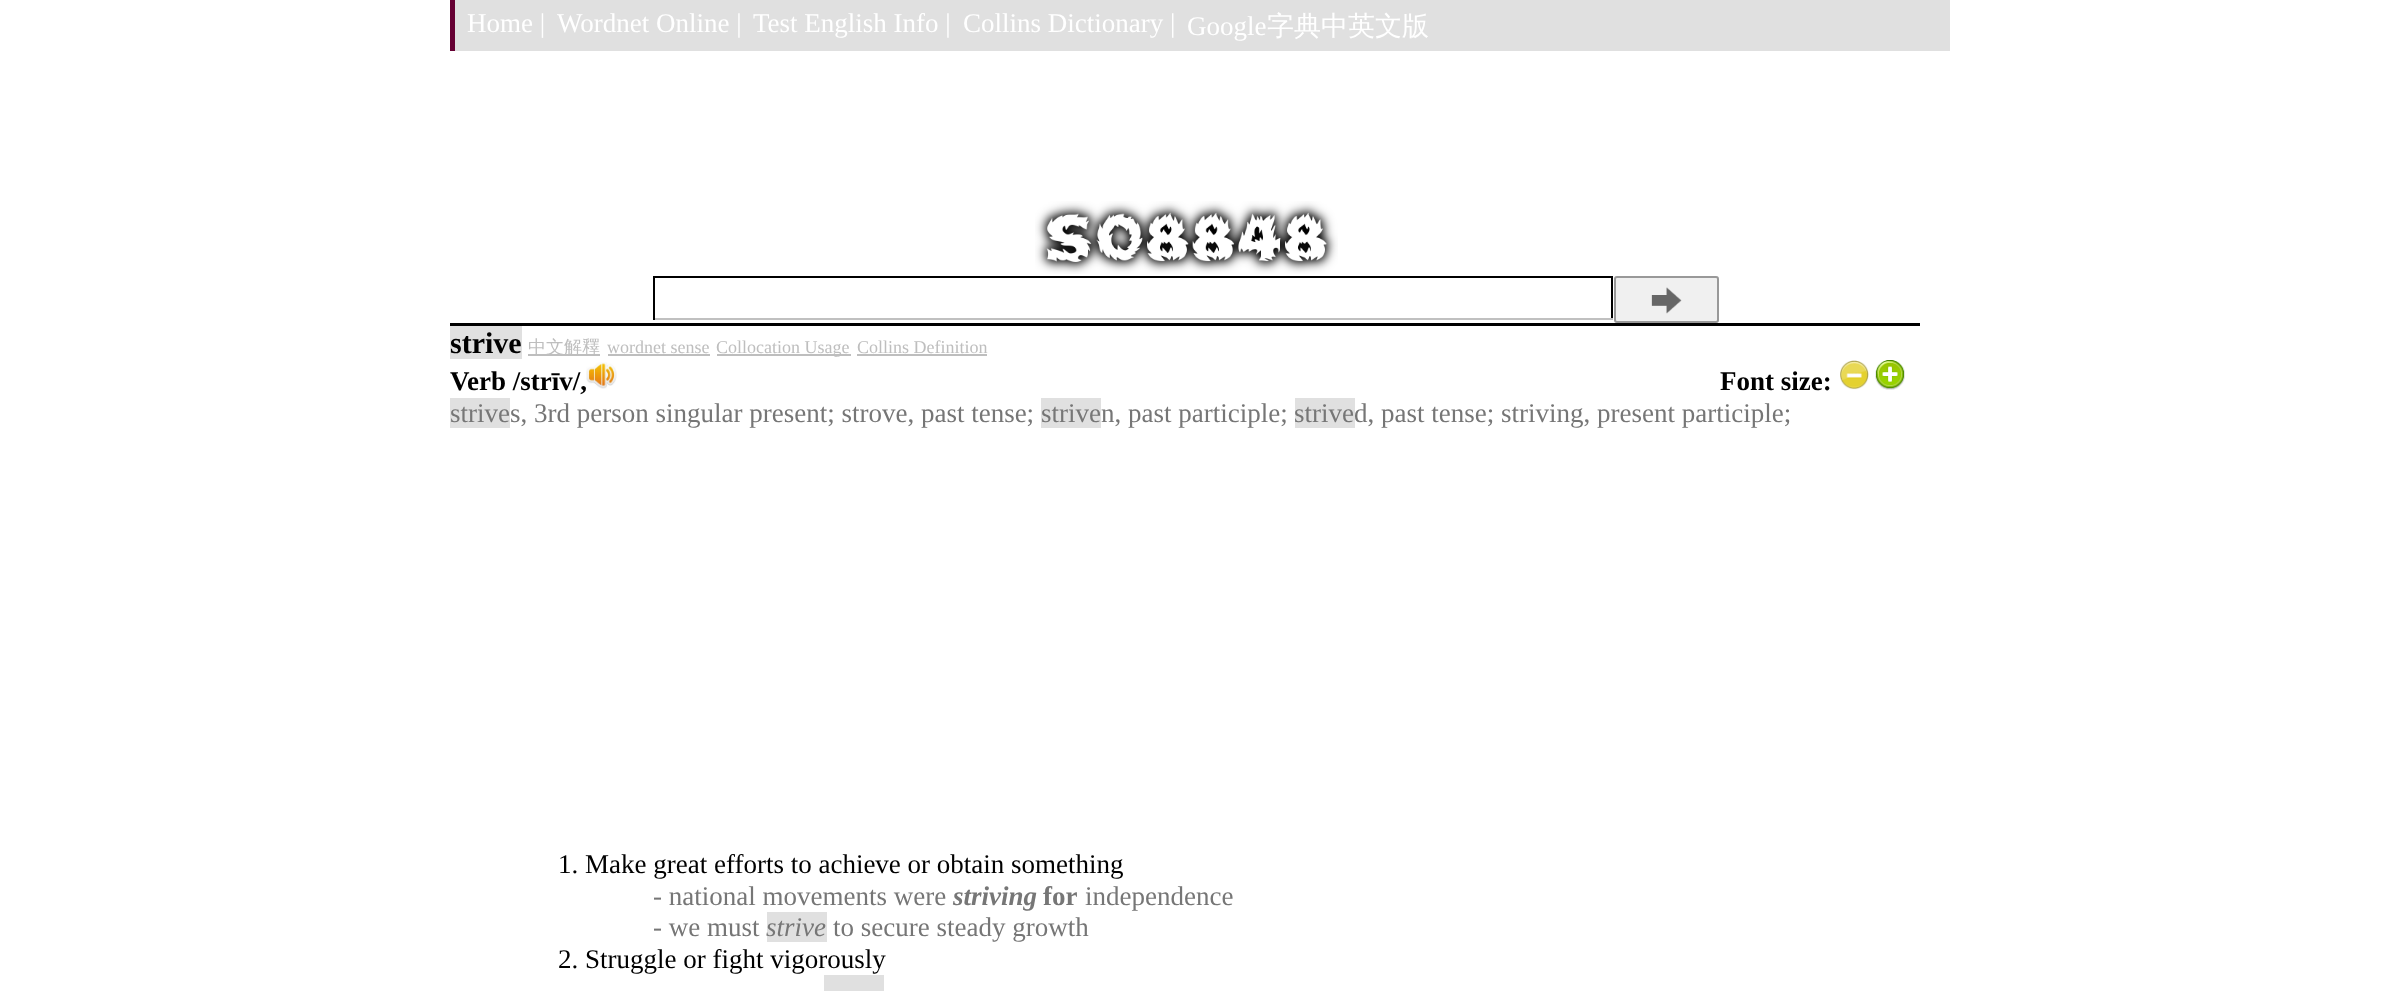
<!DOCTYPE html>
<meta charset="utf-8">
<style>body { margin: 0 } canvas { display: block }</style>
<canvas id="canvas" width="2400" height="991"></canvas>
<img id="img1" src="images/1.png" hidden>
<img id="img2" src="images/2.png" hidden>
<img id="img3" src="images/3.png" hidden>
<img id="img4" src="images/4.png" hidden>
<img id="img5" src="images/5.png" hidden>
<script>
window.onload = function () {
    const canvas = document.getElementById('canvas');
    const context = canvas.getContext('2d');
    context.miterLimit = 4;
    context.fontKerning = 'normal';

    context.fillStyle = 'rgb(255, 255, 255)';
    context.fillRect(0, 0, 2400, 991);
    context.fillStyle = 'rgb(224, 224, 224)';
    context.fillRect(455, 0, 1495, 51);
    context.fillStyle = 'rgb(102, 0, 51)';
    context.fillRect(450, 0, 5, 51);
    context.fillStyle = 'rgb(0, 0, 0)';
    context.fillRect(450, 323, 1470, 3);
    context.drawImage(document.getElementById('img1'), 1035, 201, 303, 73);
    context.fillRect(653, 276, 960, 2);
    context.fillRect(1611, 276, 2, 44);
    context.fillStyle = 'rgb(192, 192, 192)';
    context.fillRect(653, 318, 960, 2);
    context.fillStyle = 'rgb(0, 0, 0)';
    context.fillRect(653, 276, 2, 44);
    context.fillStyle = 'rgb(240, 240, 240)';
    context.beginPath();
    context.roundRect(1614, 276, 105, 47, 3);
    context.fill();
    context.drawImage(document.getElementById('img2'), 1651, 287, 31, 27);
    context.beginPath();
    context.roundRect(1615, 277, 103, 45, 2);
    context.strokeStyle = 'rgb(153, 153, 153)';
    context.lineWidth = 2;
    context.stroke();
    context.fillStyle = 'rgb(224, 224, 224)';
    context.fillRect(450, 326, 72, 33);
    context.fillStyle = 'rgb(190, 190, 190)';
    context.fillRect(528, 354, 72, 2);
    context.fillRect(608, 354, 102, 2);
    context.fillRect(717, 354, 134, 2);
    context.fillRect(857, 354, 130, 2);
    context.drawImage(document.getElementById('img3'), 586, 362, 31, 27);
    context.drawImage(document.getElementById('img4'), 1840, 360, 29, 30);
    context.drawImage(document.getElementById('img5'), 1875, 360, 30, 30);
    context.fillStyle = 'rgb(224, 224, 224)';
    context.fillRect(450, 398, 60, 30);
    context.fillRect(1041, 398, 60, 30);
    context.fillRect(1295, 398, 60, 30);
    context.fillRect(767, 912, 60, 30);
    context.fillRect(824, 975, 60, 16);
    context.font = '27px Liberation Serif';
    context.fillStyle = 'rgb(255, 255, 255)';
    context.fillText('Home |', 467, 32);
    context.fillText('Wordnet Online |', 557, 32);
    context.fillText('Test English Info |', 753, 32);
    context.fillText('Collins Dictionary |', 963, 32);
    context.fillText('Google', 1187, 35);
    context.font = '500 27px WenQuanYi Zen Hei';
    context.fillText('字典中英文版', 1267, 35);
    context.font = 'bold 30px Liberation Serif';
    context.fillStyle = 'rgb(0, 0, 0)';
    context.fillText('strive', 450, 353);
    context.font = '500 18px WenQuanYi Zen Hei';
    context.fillStyle = 'rgb(190, 190, 190)';
    context.fillText('中文解釋', 528, 353);
    context.font = '18px Liberation Serif';
    context.fillText('wordnet sense', 607, 353);
    context.fillText('Collocation Usage', 716, 353);
    context.fillText('Collins Definition', 857, 353);
    context.font = 'bold 27px Liberation Serif';
    context.fillStyle = 'rgb(0, 0, 0)';
    context.fillText('Verb /strīv/,', 450, 390);
    context.fillText('Font size:', 1720, 390);
    context.font = '27px Liberation Serif';
    context.fillStyle = 'rgb(118, 118, 118)';
    context.fillText('strives, 3rd person singular present; strove, past tense;', 450, 422);
    context.fillText('striven, past participle;', 1041, 422);
    context.fillText('strived, past tense; striving, present participle;', 1294, 422);
    context.fillStyle = 'rgb(0, 0, 0)';
    context.fillText('1. Make great efforts to achieve or obtain something', 558, 873);
    context.fillStyle = 'rgb(118, 118, 118)';
    context.fillText('- national movements were', 653, 905);
    context.font = 'italic bold 27px Liberation Serif';
    context.fillText('striving', 953, 905);
    context.font = 'bold 27px Liberation Serif';
    context.fillText('for', 1043, 905);
    context.font = '27px Liberation Serif';
    context.fillText('independence', 1085, 905);
    context.fillText('- we must', 653, 936);
    context.font = 'italic 27px Liberation Serif';
    context.fillText('strive', 766, 936);
    context.font = '27px Liberation Serif';
    context.fillText('to secure steady growth', 833, 936);
    context.fillStyle = 'rgb(0, 0, 0)';
    context.fillText('2. Struggle or fight vigorously', 558, 968);
};
</script>
